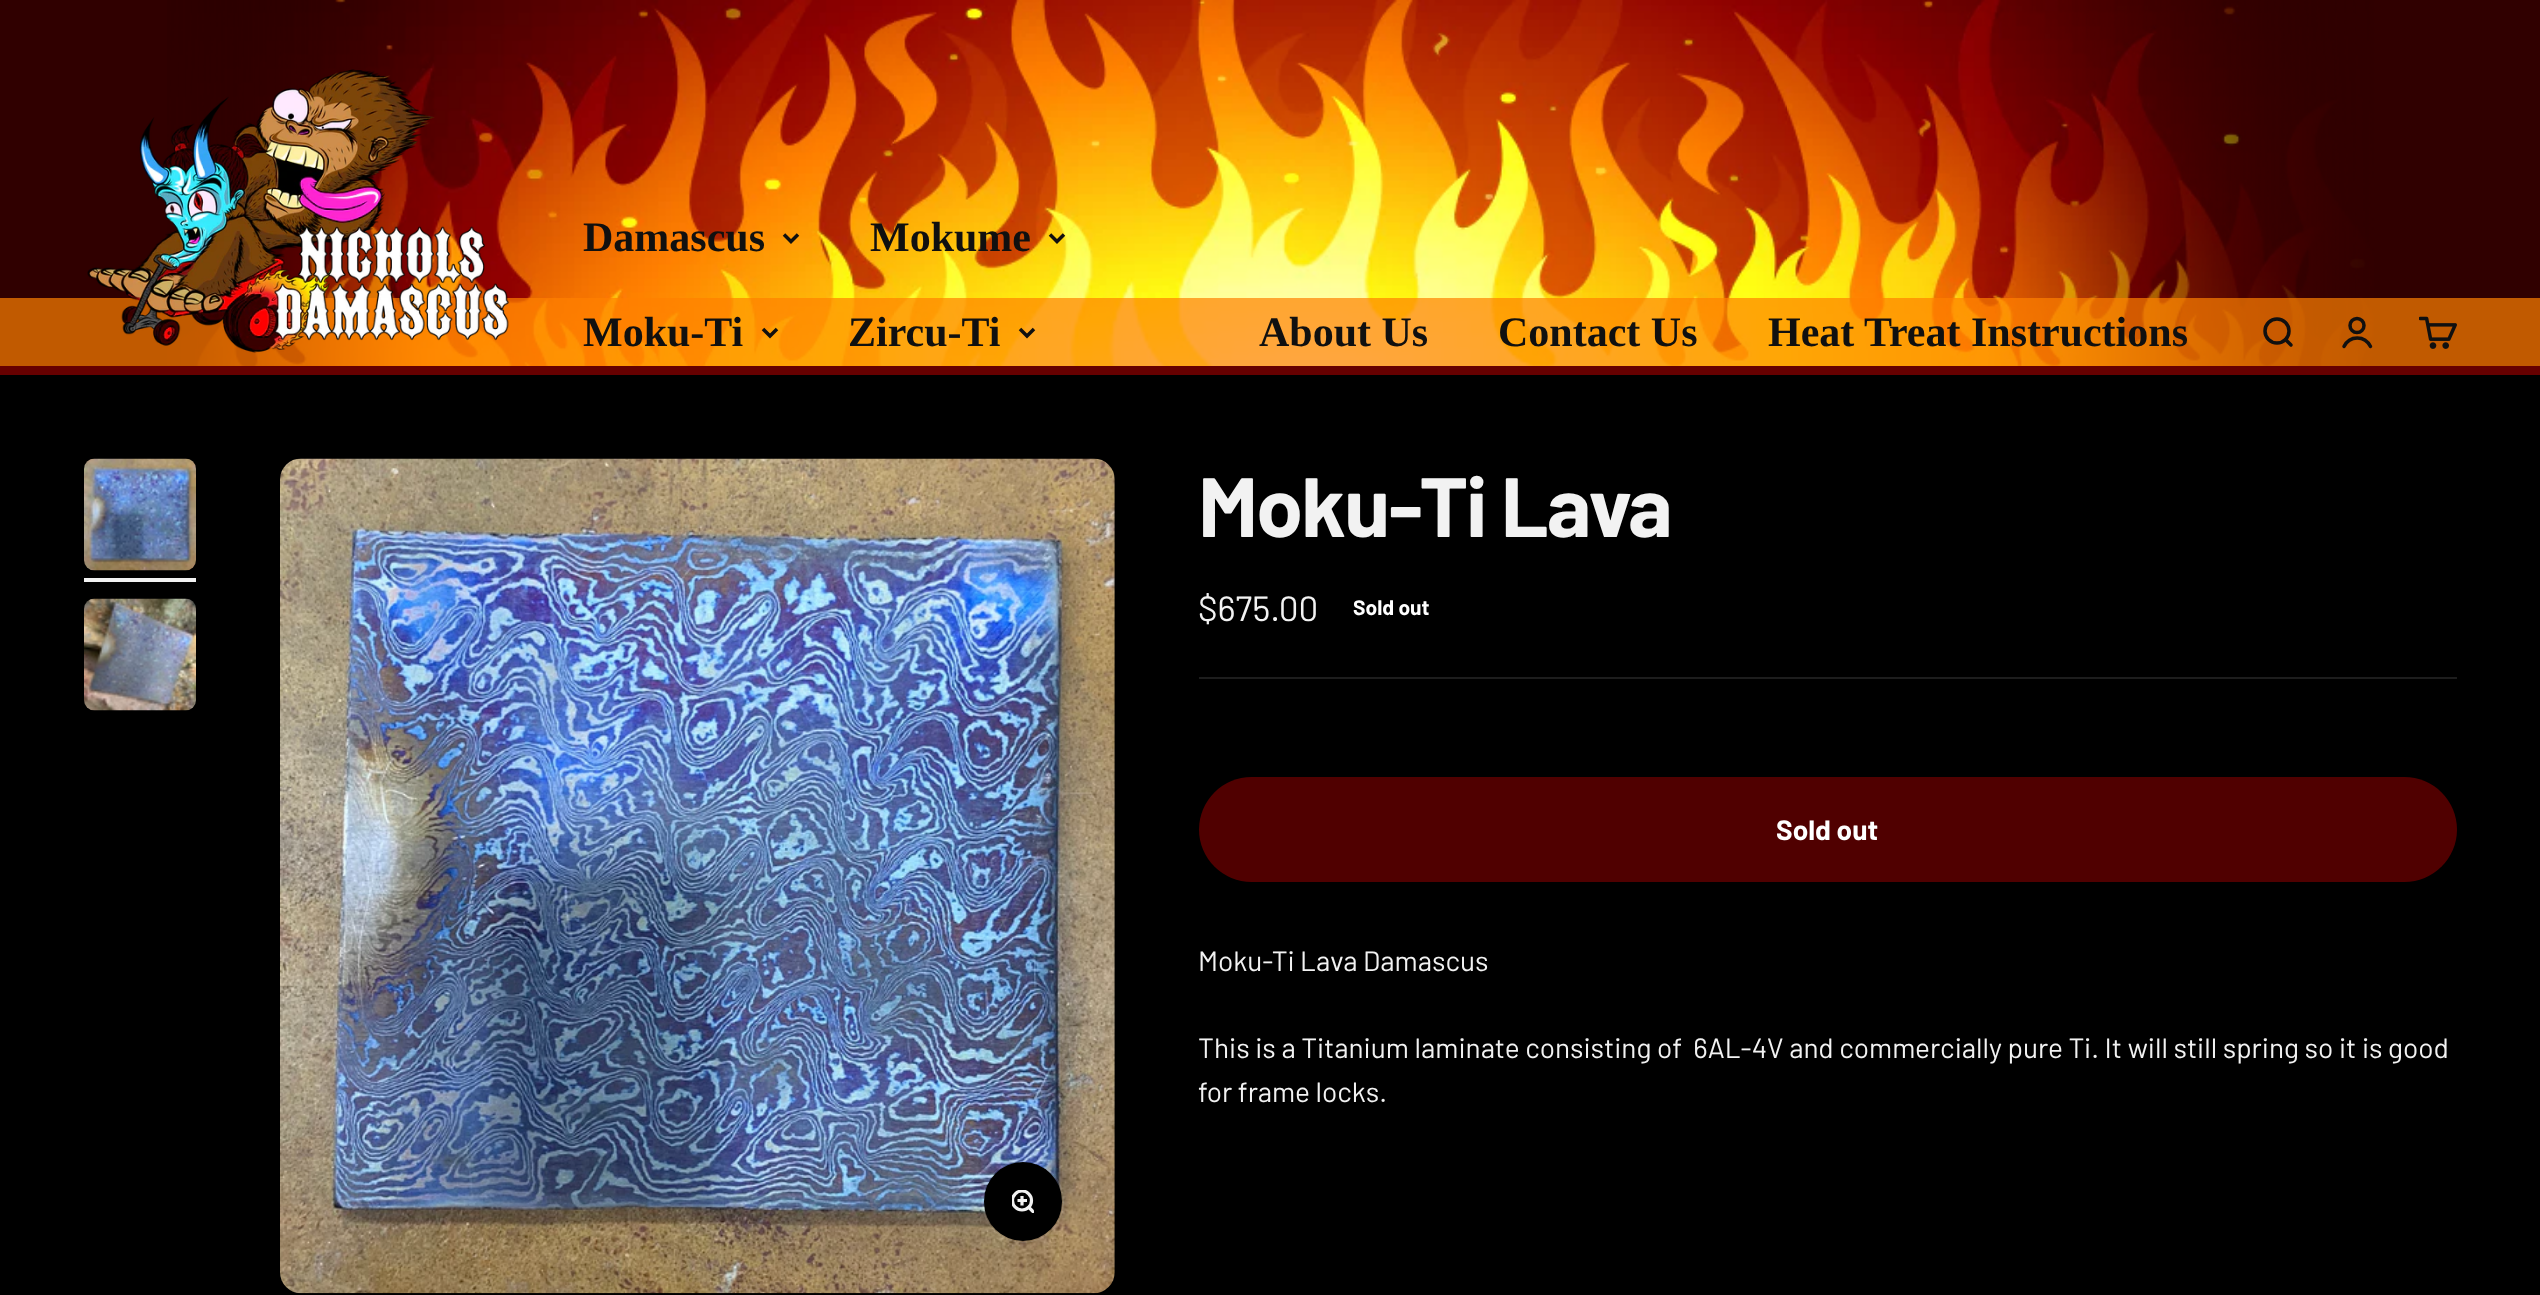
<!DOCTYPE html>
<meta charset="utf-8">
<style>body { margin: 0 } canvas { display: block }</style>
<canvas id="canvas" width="2540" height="1295"></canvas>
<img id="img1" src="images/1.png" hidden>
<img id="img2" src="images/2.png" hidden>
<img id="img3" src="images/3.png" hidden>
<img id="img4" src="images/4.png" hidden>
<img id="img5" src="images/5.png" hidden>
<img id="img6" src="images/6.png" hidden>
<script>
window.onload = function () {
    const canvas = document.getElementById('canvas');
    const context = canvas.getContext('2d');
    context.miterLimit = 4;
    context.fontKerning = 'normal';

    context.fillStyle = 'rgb(0, 0, 0)';
    context.fillRect(0, 0, 2540, 1295);
    context.fillStyle = 'rgb(48, 0, 0)';
    context.fillRect(0, 0, 2540, 366);
    context.drawImage(document.getElementById('img1'), 167, 0, 2207, 366);
    context.fillStyle = 'rgba(255, 128, 0, 0.7)';
    context.fillRect(0, 298, 2540, 68);
    context.fillStyle = 'rgb(102, 0, 0)';
    context.fillRect(0, 366, 2540, 9);
    context.drawImage(document.getElementById('img2'), 87, 69, 423, 284);
    context.beginPath();
    context.moveTo(784, 234.5);
    context.lineTo(791, 241.5);
    context.lineTo(798, 234.5);
    context.strokeStyle = 'rgb(16, 16, 16)';
    context.lineWidth = 3.5;
    context.stroke();
    context.beginPath();
    context.moveTo(1050, 234.5);
    context.lineTo(1057, 241.5);
    context.lineTo(1064, 234.5);
    context.stroke();
    context.beginPath();
    context.moveTo(763, 329);
    context.lineTo(770, 336);
    context.lineTo(777, 329);
    context.stroke();
    context.beginPath();
    context.moveTo(1020, 329);
    context.lineTo(1027, 336);
    context.lineTo(1034, 329);
    context.stroke();
    context.beginPath();
    context.arc(2277, 331, 12, 0, 2 * Math.PI);
    context.stroke();
    context.beginPath();
    context.moveTo(2285.5, 339.5);
    context.lineTo(2291, 345);
    context.lineCap = 'round';
    context.lineJoin = 'round';
    context.stroke();
    context.beginPath();
    context.arc(2357, 325.5, 7, 0, 2 * Math.PI);
    context.stroke();
    context.beginPath();
    context.moveTo(2344, 346.5);
    context.bezierCurveTo(2349.5, 335, 2365, 335, 2370.5, 346.5);
    context.lineJoin = 'miter';
    context.stroke();
    context.drawImage(document.getElementById('img3'), 2419, 316, 38, 33);
    context.drawImage(document.getElementById('img4'), 84, 458, 112, 113);
    context.fillStyle = 'rgb(242, 242, 242)';
    context.fillRect(84, 578, 112, 4);
    context.drawImage(document.getElementById('img5'), 84, 598, 112, 113);
    context.drawImage(document.getElementById('img6'), 280, 458, 835, 836);
    context.beginPath();
    context.roundRect(982.5, 1160.5, 81, 82, 40.5);
    context.strokeStyle = 'rgba(242, 242, 242, 0.12)';
    context.lineWidth = 1;
    context.stroke();
    context.fillStyle = 'rgb(0, 0, 0)';
    context.beginPath();
    context.roundRect(984, 1162, 78, 79, 39);
    context.fill();
    context.save();
    context.beginPath();
    context.rect(1012, 1190, 22, 23);
    context.clip();
    context.beginPath();
    context.arc(1022, 1200.5, 9.5, 0, 2 * Math.PI);
    context.strokeStyle = 'rgb(242, 242, 242)';
    context.lineWidth = 3.2;
    context.stroke();
    context.beginPath();
    context.moveTo(1029, 1207.5);
    context.lineTo(1033, 1211.5);
    context.lineJoin = 'round';
    context.stroke();
    context.restore();
    context.beginPath();
    context.moveTo(1022, 1196);
    context.lineTo(1022, 1205.5);
    context.moveTo(1017.5, 1200.5);
    context.lineTo(1027, 1200.5);
    context.strokeStyle = 'rgb(242, 242, 242)';
    context.lineWidth = 3.2;
    context.lineCap = 'butt';
    context.stroke();
    context.fillStyle = 'rgb(29, 29, 29)';
    context.fillRect(1199, 677, 1258, 2);
    context.fillStyle = 'rgb(80, 0, 0)';
    context.beginPath();
    context.roundRect(1199, 777, 1258, 105, 52.5);
    context.fill();
    context.font = 'bold 42px Liberation Serif';
    context.fillStyle = 'rgb(16, 16, 16)';
    context.fillText('Damascus', 583, 251);
    context.fillText('Mokume', 870, 251);
    context.fillText('Moku-Ti', 583, 346);
    context.fillText('Zircu-Ti', 848, 346);
    context.fillText('About Us', 1259, 346);
    context.fillText('Contact Us', 1498, 346);
    context.fillText('Heat Treat Instructions', 1768, 346);
    context.letterSpacing = '-1.75px';
    context.font = 'bold 84px Barlow';
    context.fillStyle = 'rgb(242, 242, 242)';
    context.fillText('Moku-Ti Lava', 1198, 537);
    context.letterSpacing = '0px';
    context.font = '35px Barlow';
    context.fillText('$675.00', 1198, 621);
    context.font = 'bold 21px Barlow';
    context.fillStyle = 'rgb(255, 255, 255)';
    context.fillText('Sold out', 1353, 615);
    context.font = 'bold 28px Barlow';
    context.fillText('Sold out', 1776, 840);
    context.font = '28px Barlow';
    context.fillStyle = 'rgb(242, 242, 242)';
    context.fillText('Moku-Ti Lava Damascus', 1198, 971);
    context.fillText('This is a Titanium laminate consisting of  6AL-4V and commercially pure Ti. It will still spring so it is good', 1198, 1058);
    context.fillText('for frame locks.', 1198, 1102);
};
</script>
